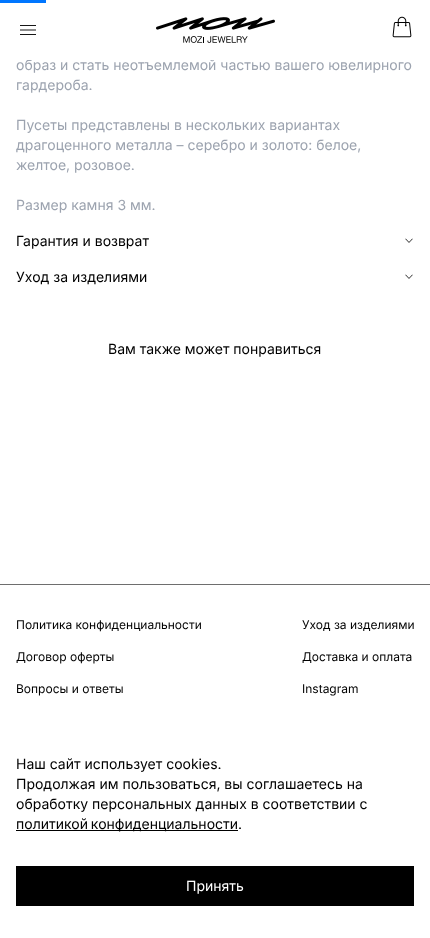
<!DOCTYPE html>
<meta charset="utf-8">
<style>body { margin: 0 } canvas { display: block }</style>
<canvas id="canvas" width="430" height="938"></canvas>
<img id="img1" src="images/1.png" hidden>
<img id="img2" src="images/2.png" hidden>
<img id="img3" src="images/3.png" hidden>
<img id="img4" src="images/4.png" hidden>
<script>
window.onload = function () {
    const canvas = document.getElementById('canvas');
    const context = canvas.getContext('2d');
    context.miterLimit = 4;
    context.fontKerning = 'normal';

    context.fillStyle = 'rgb(255, 255, 255)';
    context.fillRect(0, 0, 430, 938);
    context.fillStyle = 'rgb(0, 118, 255)';
    context.fillRect(0, 0, 46, 3);
    context.drawImage(document.getElementById('img1'), 20, 25, 16, 10);
    context.drawImage(document.getElementById('img2'), 156, 17, 119, 26);
    context.drawImage(document.getElementById('img3'), 392, 16, 20, 22);
    context.drawImage(document.getElementById('img4'), 405, 238, 8, 5);
    context.drawImage(document.getElementById('img4'), 405, 274, 8, 5);
    context.fillStyle = 'rgb(110, 110, 110)';
    context.fillRect(0, 584, 430, 1);
    context.fillStyle = 'rgb(0, 0, 0)';
    context.fillRect(16, 830, 222, 1);
    context.fillRect(16, 866, 398, 40);
    context.font = '14px Inter';
    context.fillStyle = 'rgb(156, 163, 175)';
    context.fillText('образ и стать неотъемлемой частью вашего ювелирного', 16, 70);
    context.fillStyle = 'rgb(255, 255, 255)';
    context.fillRect(27, 59, 188, 1);
    context.fillStyle = 'rgb(156, 163, 175)';
    context.fillText('гардероба.', 16, 90);
    context.fillText('Пусеты представлены в нескольких вариантах', 16, 130);
    context.fillText('драгоценного металла – серебро и золото: белое,', 16, 150);
    context.fillText('желтое, розовое.', 16, 170);
    context.fillText('Размер камня 3 мм.', 16, 210);
    context.fillStyle = 'rgb(0, 0, 0)';
    context.fillText('Гарантия и возврат', 16, 246);
    context.fillText('Уход за изделиями', 16, 282);
    context.fillText('Вам также может понравиться', 108, 354);
    context.font = '12px Inter';
    context.fillText('Политика конфиденциальности', 16, 629);
    context.fillText('Уход за изделиями', 302, 629);
    context.fillText('Договор оферты', 16, 661);
    context.fillText('Доставка и оплата', 302, 661);
    context.fillText('Вопросы и ответы', 16, 693);
    context.fillText('Instagram', 302, 693);
    context.font = '14px Inter';
    context.fillText('Наш сайт использует cookies.', 16, 769);
    context.fillText('Продолжая им пользоваться, вы соглашаетесь на', 16, 789);
    context.fillText('обработку персональных данных в соответствии с', 16, 809);
    context.wordSpacing = '-1px';
    context.fillText('политикой конфиденциальности', 16, 829);
    context.wordSpacing = '0px';
    context.fillText('.', 238, 829);
    context.fillStyle = 'rgb(255, 255, 255)';
    context.fillText('Принять', 186, 891);
};
</script>
